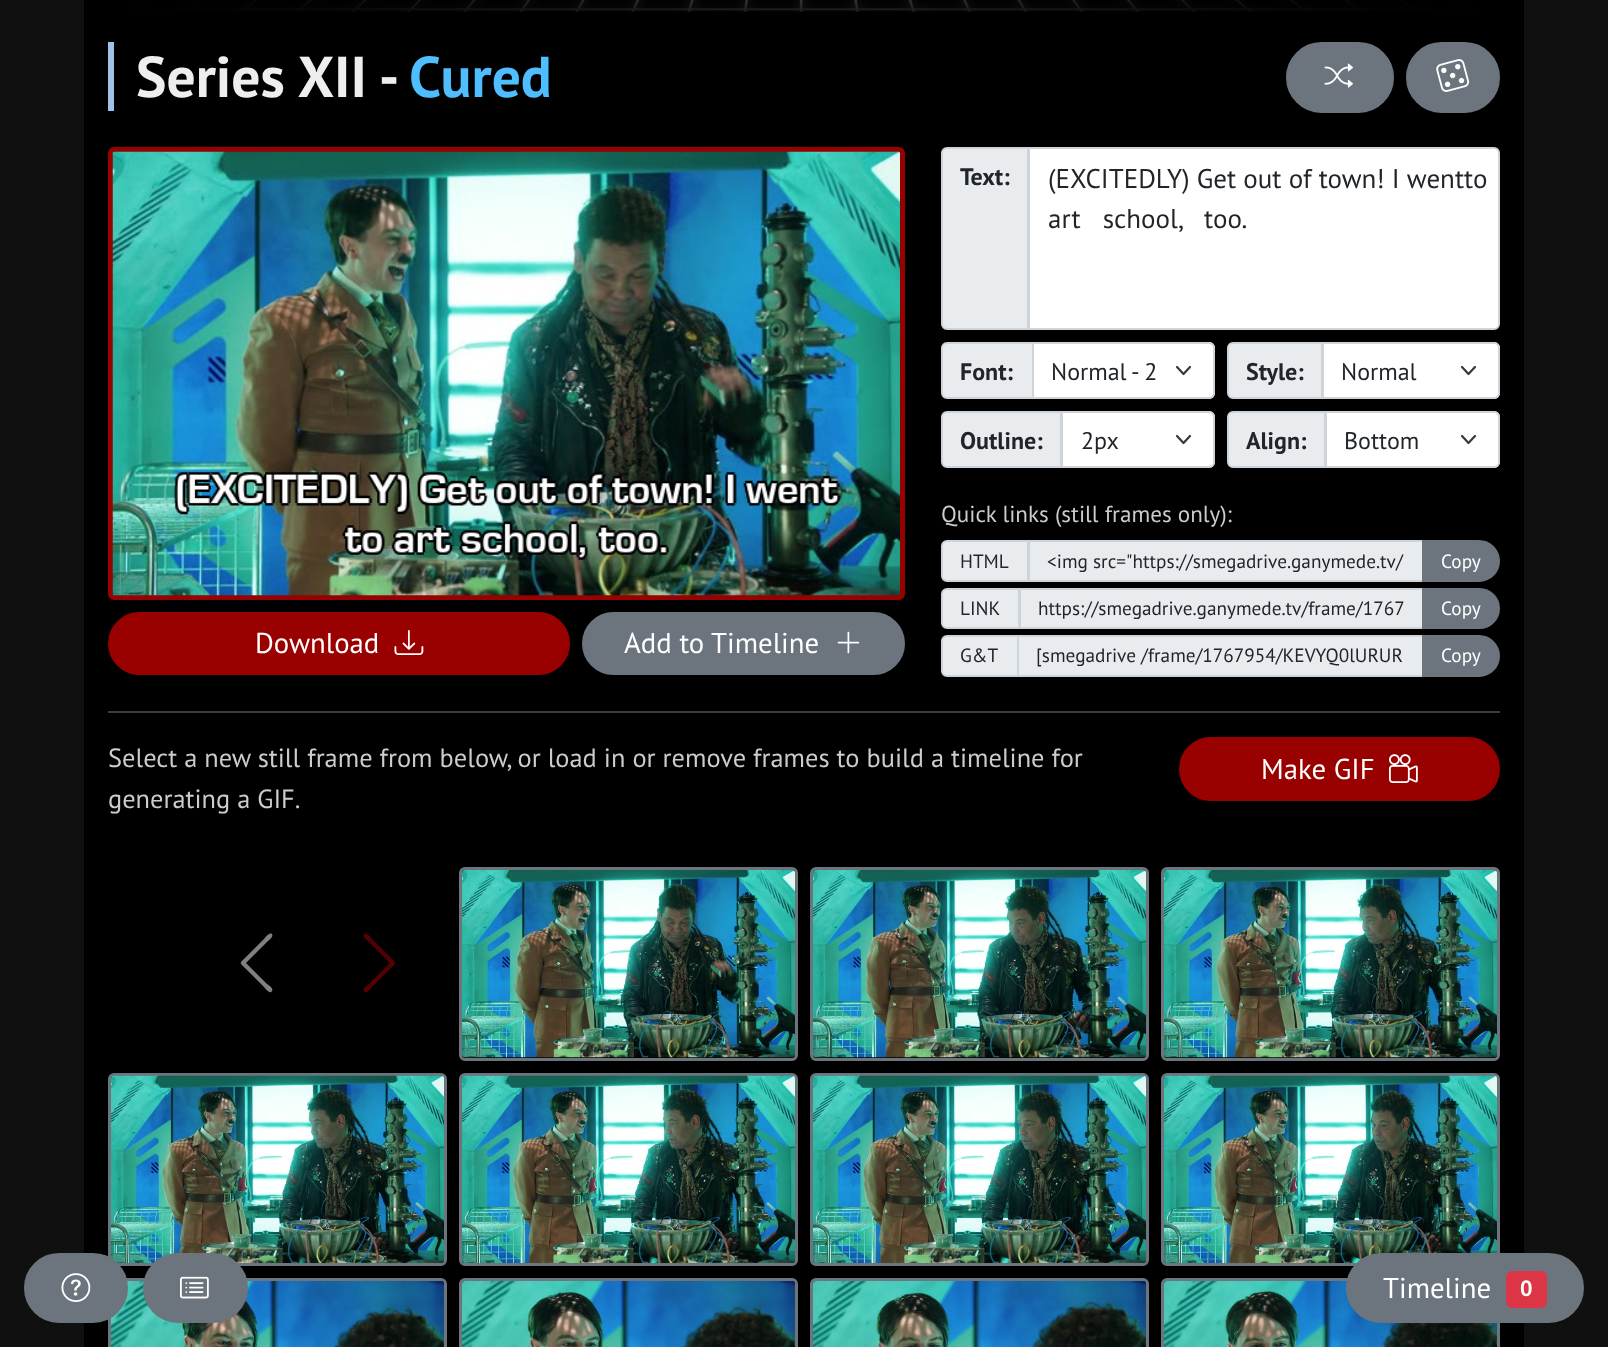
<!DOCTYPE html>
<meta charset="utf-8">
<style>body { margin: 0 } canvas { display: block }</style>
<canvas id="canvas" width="1608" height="1347"></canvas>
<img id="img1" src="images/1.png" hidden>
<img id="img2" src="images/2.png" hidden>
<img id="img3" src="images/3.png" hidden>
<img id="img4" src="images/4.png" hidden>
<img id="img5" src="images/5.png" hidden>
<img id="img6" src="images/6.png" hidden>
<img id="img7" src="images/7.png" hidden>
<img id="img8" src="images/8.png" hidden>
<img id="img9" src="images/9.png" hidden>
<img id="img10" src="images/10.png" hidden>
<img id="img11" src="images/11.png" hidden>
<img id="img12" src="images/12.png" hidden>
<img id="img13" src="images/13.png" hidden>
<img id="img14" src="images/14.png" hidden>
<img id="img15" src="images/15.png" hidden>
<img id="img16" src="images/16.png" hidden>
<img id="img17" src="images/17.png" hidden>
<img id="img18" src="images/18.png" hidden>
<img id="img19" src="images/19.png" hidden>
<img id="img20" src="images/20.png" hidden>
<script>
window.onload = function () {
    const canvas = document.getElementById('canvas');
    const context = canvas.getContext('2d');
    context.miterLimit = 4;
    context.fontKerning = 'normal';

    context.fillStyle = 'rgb(16, 16, 16)';
    context.fillRect(0, 0, 1608, 1347);
    context.drawImage(document.getElementById('img1'), 84, 0, 1440, 12);
    context.fillStyle = 'rgb(0, 0, 0)';
    context.fillRect(84, 12, 1440, 1335);
    context.fillStyle = 'rgb(160, 194, 232)';
    context.fillRect(108, 42, 6, 69);
    context.fillStyle = 'rgb(108, 117, 125)';
    context.beginPath();
    context.roundRect(1287, 43, 106, 69, 34.5);
    context.fill();
    context.strokeStyle = 'rgb(108, 117, 125)';
    context.lineWidth = 2;
    context.stroke();
    context.drawImage(document.getElementById('img2'), 1324, 63, 29, 25);
    context.beginPath();
    context.roundRect(1407, 43, 92, 69, 34.5);
    context.fill();
    context.stroke();
    context.drawImage(document.getElementById('img3'), 1436, 59, 34, 33);
    context.beginPath();
    context.roundRect(110.5, 149.5, 792, 448, 3.5);
    context.strokeStyle = 'rgb(153, 0, 0)';
    context.lineWidth = 5;
    context.stroke();
    context.drawImage(document.getElementById('img4'), 112, 151, 788, 445);
    context.fillStyle = 'rgb(153, 0, 0)';
    context.beginPath();
    context.roundRect(109, 613, 460, 61, 30.5);
    context.fill();
    context.lineWidth = 2;
    context.stroke();
    context.drawImage(document.getElementById('img5'), 394, 630, 30, 25);
    context.fillStyle = 'rgb(108, 117, 125)';
    context.beginPath();
    context.roundRect(583, 613, 321, 61, 30.5);
    context.fill();
    context.strokeStyle = 'rgb(108, 117, 125)';
    context.stroke();
    context.drawImage(document.getElementById('img6'), 837, 631, 23, 23);
    context.fillStyle = 'rgb(233, 236, 239)';
    context.beginPath();
    context.roundRect(942, 148, 86, 181, [5, 0, 0, 5]);
    context.fill();
    context.strokeStyle = 'rgb(206, 212, 218)';
    context.stroke();
    context.fillStyle = 'rgb(255, 255, 255)';
    context.beginPath();
    context.roundRect(1029, 148, 470, 181, [0, 5, 5, 0]);
    context.fill();
    context.stroke();
    context.fillStyle = 'rgb(233, 236, 239)';
    context.beginPath();
    context.roundRect(942, 343, 91, 55, [5, 0, 0, 5]);
    context.fill();
    context.stroke();
    context.fillStyle = 'rgb(255, 255, 255)';
    context.beginPath();
    context.roundRect(1032, 342, 183, 57, [0, 6, 6, 0]);
    context.fill();
    context.beginPath();
    context.moveTo(1177, 367);
    context.lineTo(1183.5, 374);
    context.lineTo(1190, 367);
    context.strokeStyle = 'rgb(52, 58, 64)';
    context.lineWidth = 2.2;
    context.lineCap = 'round';
    context.lineJoin = 'round';
    context.stroke();
    context.beginPath();
    context.roundRect(1033, 343, 181, 55, [0, 5, 5, 0]);
    context.strokeStyle = 'rgb(206, 212, 218)';
    context.lineWidth = 2;
    context.lineJoin = 'miter';
    context.stroke();
    context.fillStyle = 'rgb(233, 236, 239)';
    context.beginPath();
    context.roundRect(1228, 343, 94, 55, [5, 0, 0, 5]);
    context.fill();
    context.stroke();
    context.fillStyle = 'rgb(255, 255, 255)';
    context.beginPath();
    context.roundRect(1322, 342, 178, 57, [0, 6, 6, 0]);
    context.fill();
    context.beginPath();
    context.moveTo(1462, 367);
    context.lineTo(1468.5, 374);
    context.lineTo(1475, 367);
    context.strokeStyle = 'rgb(52, 58, 64)';
    context.lineWidth = 2.2;
    context.lineJoin = 'round';
    context.stroke();
    context.beginPath();
    context.roundRect(1323, 343, 176, 55, [0, 5, 5, 0]);
    context.strokeStyle = 'rgb(206, 212, 218)';
    context.lineWidth = 2;
    context.lineJoin = 'miter';
    context.stroke();
    context.fillStyle = 'rgb(233, 236, 239)';
    context.beginPath();
    context.roundRect(942, 412, 119, 55, [5, 0, 0, 5]);
    context.fill();
    context.stroke();
    context.fillStyle = 'rgb(255, 255, 255)';
    context.beginPath();
    context.roundRect(1061, 411, 154, 57, [0, 6, 6, 0]);
    context.fill();
    context.beginPath();
    context.moveTo(1177, 436);
    context.lineTo(1183.5, 443);
    context.lineTo(1190, 436);
    context.strokeStyle = 'rgb(52, 58, 64)';
    context.lineWidth = 2.2;
    context.lineJoin = 'round';
    context.stroke();
    context.beginPath();
    context.roundRect(1062, 412, 152, 55, [0, 5, 5, 0]);
    context.strokeStyle = 'rgb(206, 212, 218)';
    context.lineWidth = 2;
    context.lineJoin = 'miter';
    context.stroke();
    context.fillStyle = 'rgb(233, 236, 239)';
    context.beginPath();
    context.roundRect(1228, 412, 97, 55, [5, 0, 0, 5]);
    context.fill();
    context.stroke();
    context.fillStyle = 'rgb(255, 255, 255)';
    context.beginPath();
    context.roundRect(1325, 411, 175, 57, [0, 6, 6, 0]);
    context.fill();
    context.beginPath();
    context.moveTo(1462, 436);
    context.lineTo(1468.5, 443);
    context.lineTo(1475, 436);
    context.strokeStyle = 'rgb(52, 58, 64)';
    context.lineWidth = 2.2;
    context.lineJoin = 'round';
    context.stroke();
    context.beginPath();
    context.roundRect(1326, 412, 173, 55, [0, 5, 5, 0]);
    context.strokeStyle = 'rgb(206, 212, 218)';
    context.lineWidth = 2;
    context.lineJoin = 'miter';
    context.stroke();
    context.fillStyle = 'rgb(233, 236, 239)';
    context.beginPath();
    context.roundRect(942, 541, 86, 40, [5, 0, 0, 5]);
    context.fill();
    context.stroke();
    context.beginPath();
    context.rect(1029, 541, 394, 40);
    context.fill();
    context.stroke();
    context.fillStyle = 'rgb(108, 117, 125)';
    context.beginPath();
    context.roundRect(1423, 541, 76, 40, [0, 20, 20, 0]);
    context.fill();
    context.strokeStyle = 'rgb(108, 117, 125)';
    context.stroke();
    context.fillStyle = 'rgb(233, 236, 239)';
    context.beginPath();
    context.roundRect(942, 589, 77, 39, [5, 0, 0, 5]);
    context.fill();
    context.strokeStyle = 'rgb(206, 212, 218)';
    context.stroke();
    context.beginPath();
    context.rect(1020, 589, 403, 39);
    context.fill();
    context.stroke();
    context.fillStyle = 'rgb(108, 117, 125)';
    context.beginPath();
    context.roundRect(1423, 589, 76, 39, [0, 19.5, 19.5, 0]);
    context.fill();
    context.strokeStyle = 'rgb(108, 117, 125)';
    context.stroke();
    context.fillStyle = 'rgb(233, 236, 239)';
    context.beginPath();
    context.roundRect(942, 636, 76, 40, [5, 0, 0, 5]);
    context.fill();
    context.strokeStyle = 'rgb(206, 212, 218)';
    context.stroke();
    context.beginPath();
    context.rect(1018, 636, 405, 40);
    context.fill();
    context.stroke();
    context.fillStyle = 'rgb(108, 117, 125)';
    context.beginPath();
    context.roundRect(1423, 636, 76, 40, [0, 20, 20, 0]);
    context.fill();
    context.strokeStyle = 'rgb(108, 117, 125)';
    context.stroke();
    context.fillStyle = 'rgb(60, 60, 60)';
    context.fillRect(108, 711, 1392, 2);
    context.fillStyle = 'rgb(153, 0, 0)';
    context.beginPath();
    context.roundRect(1180, 738, 319, 62, 31);
    context.fill();
    context.strokeStyle = 'rgb(153, 0, 0)';
    context.stroke();
    context.drawImage(document.getElementById('img7'), 1389, 754, 29, 29);
    context.fillStyle = 'rgb(128, 128, 128)';
    context.beginPath();
    context.moveTo(272, 934);
    context.bezierCurveTo(274, 937, 268, 941, 267, 942);
    context.lineTo(246, 963);
    context.lineTo(267, 984);
    context.bezierCurveTo(268, 985, 274, 988, 272, 991);
    context.bezierCurveTo(270, 995, 265, 988, 264, 987);
    context.lineTo(246, 969);
    context.bezierCurveTo(239, 962, 239, 964, 246, 957);
    context.lineTo(264, 939);
    context.bezierCurveTo(265, 938, 269, 932, 272, 934);
    context.closePath();
    context.fill();
    context.fillStyle = 'rgb(85, 0, 0)';
    context.beginPath();
    context.moveTo(364, 934);
    context.bezierCurveTo(367, 932, 371, 938, 372, 939);
    context.lineTo(390, 957);
    context.bezierCurveTo(397, 964, 397, 962, 390, 969);
    context.lineTo(372, 987);
    context.bezierCurveTo(371, 988, 366, 995, 364, 991);
    context.bezierCurveTo(362, 988, 368, 985, 369, 984);
    context.lineTo(390, 963);
    context.lineTo(369, 942);
    context.bezierCurveTo(368, 941, 362, 937, 364, 934);
    context.closePath();
    context.fill();
    context.beginPath();
    context.roundRect(460.5, 868.5, 336, 191, 4.5);
    context.strokeStyle = 'rgb(108, 117, 125)';
    context.lineWidth = 3;
    context.stroke();
    context.drawImage(document.getElementById('img8'), 462, 870, 333, 188);
    context.beginPath();
    context.roundRect(811.5, 868.5, 336, 191, 4.5);
    context.stroke();
    context.drawImage(document.getElementById('img9'), 813, 870, 333, 188);
    context.beginPath();
    context.roundRect(1162.5, 868.5, 336, 191, 4.5);
    context.stroke();
    context.drawImage(document.getElementById('img10'), 1164, 870, 333, 188);
    context.beginPath();
    context.roundRect(109.5, 1074.5, 336, 190, 4.5);
    context.stroke();
    context.drawImage(document.getElementById('img11'), 111, 1075, 333, 188);
    context.beginPath();
    context.roundRect(460.5, 1074.5, 336, 190, 4.5);
    context.stroke();
    context.drawImage(document.getElementById('img12'), 462, 1075, 333, 188);
    context.beginPath();
    context.roundRect(811.5, 1074.5, 336, 190, 4.5);
    context.stroke();
    context.drawImage(document.getElementById('img13'), 813, 1075, 333, 188);
    context.beginPath();
    context.roundRect(1162.5, 1074.5, 336, 190, 4.5);
    context.stroke();
    context.drawImage(document.getElementById('img14'), 1164, 1075, 333, 188);
    context.beginPath();
    context.roundRect(109.5, 1279.5, 336, 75, 4.5);
    context.stroke();
    context.drawImage(document.getElementById('img15'), 111, 1281, 333, 66);
    context.beginPath();
    context.roundRect(460.5, 1279.5, 336, 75, 4.5);
    context.stroke();
    context.drawImage(document.getElementById('img16'), 462, 1281, 333, 66);
    context.beginPath();
    context.roundRect(811.5, 1279.5, 336, 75, 4.5);
    context.stroke();
    context.drawImage(document.getElementById('img17'), 813, 1281, 333, 66);
    context.beginPath();
    context.roundRect(1162.5, 1279.5, 336, 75, 4.5);
    context.stroke();
    context.drawImage(document.getElementById('img18'), 1164, 1281, 333, 66);
    context.fillStyle = 'rgb(108, 117, 125)';
    context.beginPath();
    context.roundRect(25, 1254, 102, 68, 34);
    context.fill();
    context.lineWidth = 2;
    context.stroke();
    context.drawImage(document.getElementById('img19'), 61, 1273, 30, 29);
    context.beginPath();
    context.roundRect(144, 1254, 103, 68, 34);
    context.fill();
    context.stroke();
    context.drawImage(document.getElementById('img20'), 180, 1276, 29, 23);
    context.beginPath();
    context.roundRect(1347, 1254, 236, 68, 34);
    context.fill();
    context.stroke();
    context.fillStyle = 'rgb(220, 53, 69)';
    context.beginPath();
    context.roundRect(1506, 1271, 41, 37, 6);
    context.fill();
    context.font = 'bold 57.5px PT Sans';
    context.fillStyle = 'rgb(238, 238, 238)';
    context.fillText('Series XII -', 136, 97);
    context.fillStyle = 'rgb(79, 190, 255)';
    context.fillText('Cured', 409, 97);
    context.font = '28.75px PT Sans';
    context.fillStyle = 'rgb(255, 255, 255)';
    context.fillText('Download', 255, 653);
    context.fillText('Add to Timeline', 624, 653);
    context.font = 'bold 24px PT Sans';
    context.fillStyle = 'rgb(33, 37, 41)';
    context.fillText('Text:', 960, 185);
    context.font = '27px PT Sans';
    context.fillText('(EXCITEDLY) Get out of town! I wentto', 1048, 188);
    context.wordSpacing = '15px';
    context.fillText('art school, too.', 1048, 228);
    context.wordSpacing = '0px';
    context.font = 'bold 24px PT Sans';
    context.fillText('Font:', 960, 380);
    context.font = '24px PT Sans';
    context.fillText('Normal - 2', 1051, 380);
    context.font = 'bold 24px PT Sans';
    context.fillText('Style:', 1246, 380);
    context.font = '24px PT Sans';
    context.fillText('Normal', 1341, 380);
    context.font = 'bold 24px PT Sans';
    context.fillText('Outline:', 960, 449);
    context.font = '24px PT Sans';
    context.fillText('2px', 1081, 449);
    context.font = 'bold 24px PT Sans';
    context.fillText('Align:', 1246, 449);
    context.font = '24px PT Sans';
    context.fillText('Bottom', 1344, 449);
    context.font = '23.1px PT Sans';
    context.fillStyle = 'rgb(204, 204, 204)';
    context.fillText('Quick links (still frames only):', 941, 522);
    context.font = '19.25px PT Sans';
    context.fillStyle = 'rgb(33, 37, 41)';
    context.fillText('HTML', 960, 568);
    context.fillText('<img src="https://smegadrive.ganymede.tv/', 1047, 568);
    context.fillStyle = 'rgb(255, 255, 255)';
    context.fillText('Copy', 1441, 568);
    context.fillStyle = 'rgb(33, 37, 41)';
    context.fillText('LINK', 960, 615);
    context.fillText('https://smegadrive.ganymede.tv/frame/1767', 1038, 615);
    context.fillStyle = 'rgb(255, 255, 255)';
    context.fillText('Copy', 1441, 615);
    context.fillStyle = 'rgb(33, 37, 41)';
    context.fillText('G&T', 960, 662);
    context.fillText('[smegadrive /frame/1767954/KEVYQ0lURUR', 1036, 662);
    context.fillStyle = 'rgb(255, 255, 255)';
    context.fillText('Copy', 1441, 662);
    context.font = '26.4px PT Sans';
    context.fillStyle = 'rgb(204, 204, 204)';
    context.fillText('Select a new still frame from below, or load in or remove frames to build a timeline for', 108, 767);
    context.fillText('generating a GIF.', 108, 808);
    context.font = '28.75px PT Sans';
    context.fillStyle = 'rgb(255, 255, 255)';
    context.fillText('Make GIF', 1261, 779);
    context.fillText('Timeline', 1383, 1298);
    context.font = 'bold 22px PT Sans';
    context.fillText('0', 1520, 1296);
};
</script>
